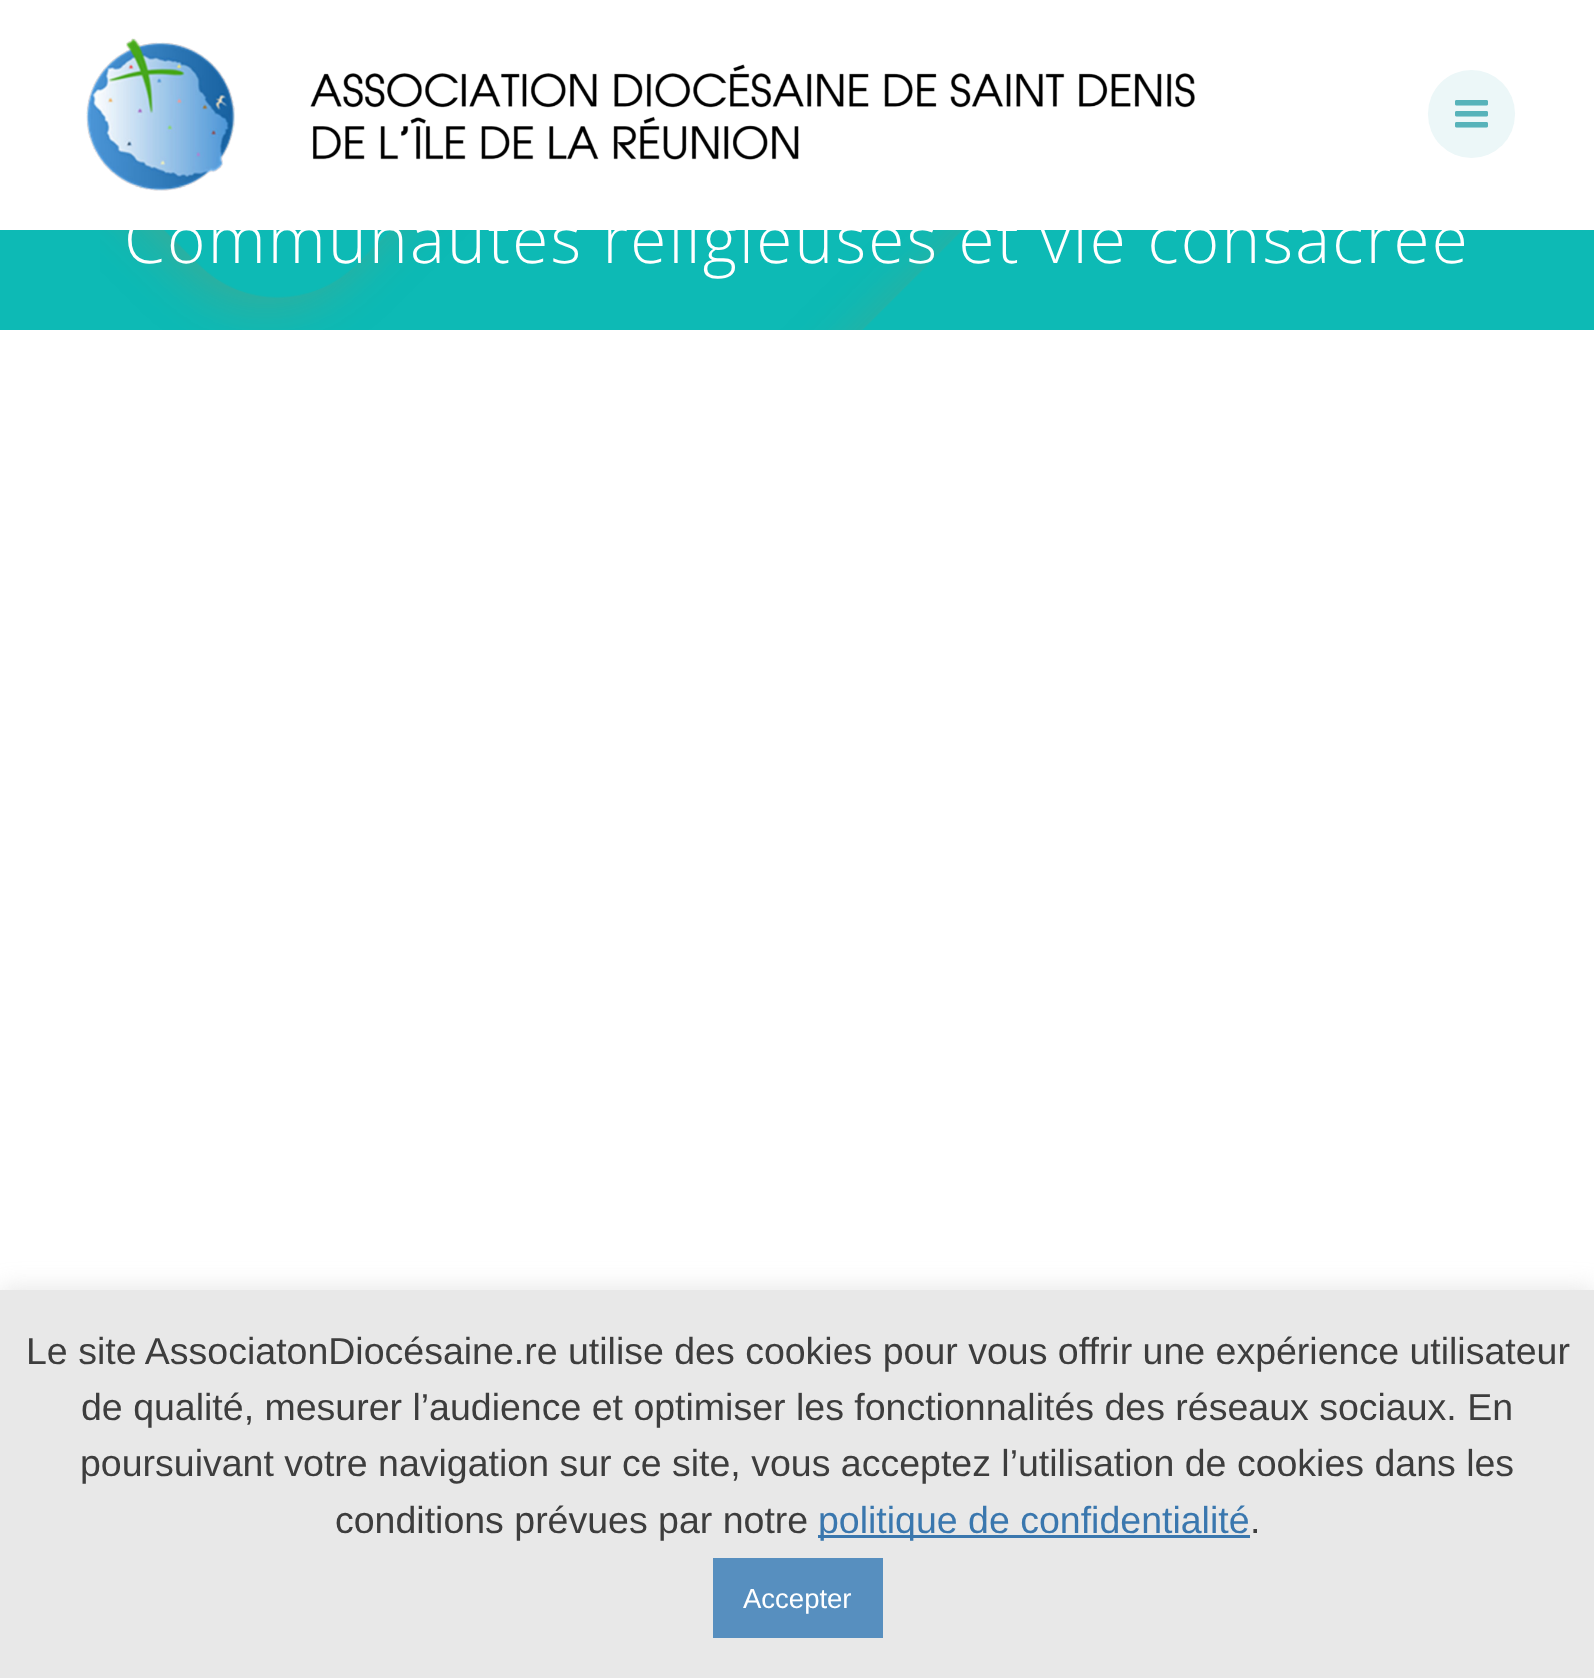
<!DOCTYPE html>
<meta charset="utf-8">
<style>body { margin: 0 } canvas { display: block }</style>
<canvas id="canvas" width="1594" height="1678"></canvas>
<img id="img1" src="images/1.png" hidden>
<img id="img2" src="images/2.png" hidden>
<img id="img3" src="images/3.png" hidden>
<script>
window.onload = function () {
    const canvas = document.getElementById('canvas');
    const context = canvas.getContext('2d');
    context.miterLimit = 4;
    context.fontKerning = 'normal';

    context.fillStyle = 'rgb(255, 255, 255)';
    context.fillRect(0, 0, 1594, 1678);
    context.drawImage(document.getElementById('img1'), 86, 38, 1109, 153);
    context.fillStyle = 'rgb(236, 247, 248)';
    context.beginPath();
    context.roundRect(1428, 70, 87, 88, 43.5);
    context.fill();
    context.drawImage(document.getElementById('img2'), 1455, 100, 33, 28);
    context.fillStyle = 'rgb(13, 186, 181)';
    context.fillRect(0, 230, 1594, 100);
    context.drawImage(document.getElementById('img3'), 100, 230, 863, 100);
    context.fillStyle = 'rgba(172, 171, 171, 0.3)';
    context.filter = 'blur(12.5px)';
    context.beginPath();
    context.rect(0, 1288, 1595, 390);
    context.fill();
    context.filter = 'none';
    context.fillStyle = 'rgb(232, 232, 232)';
    context.fillRect(0, 1290, 1594, 388);
    context.fillStyle = 'rgb(58, 119, 174)';
    context.fillRect(818, 1535, 432, 3);
    context.fillStyle = 'rgb(87, 143, 191)';
    context.fillRect(713, 1558, 170, 80);
    context.letterSpacing = '2.25px';
    context.font = '300 65.6px Open Sans';
    context.fillStyle = 'rgb(255, 255, 255)';
    context.fillText('Communautés religieuses et vie consacrée', 124, 263);
    context.letterSpacing = '0px';
    context.font = '37.5px Liberation Sans';
    context.fillStyle = 'rgb(61, 61, 61)';
    context.fillText('Le site AssociatonDiocésaine.re utilise des cookies pour vous offrir une expérience utilisateur', 26, 1364);
    context.fillText('de qualité, mesurer l’audience et optimiser les fonctionnalités des réseaux sociaux. En', 81, 1420);
    context.fillText('poursuivant votre navigation sur ce site, vous acceptez l’utilisation de cookies dans les', 80, 1476);
    context.fillText('conditions prévues par notre', 335, 1533);
    context.fillStyle = 'rgb(58, 119, 174)';
    context.fillText('politique de confidentialité', 818, 1533);
    context.fillStyle = 'rgb(61, 61, 61)';
    context.fillText('.', 1250, 1533);
    context.font = '27.5px Liberation Sans';
    context.fillStyle = 'rgb(255, 255, 255)';
    context.fillText('Accepter', 743, 1608);
};
</script>
